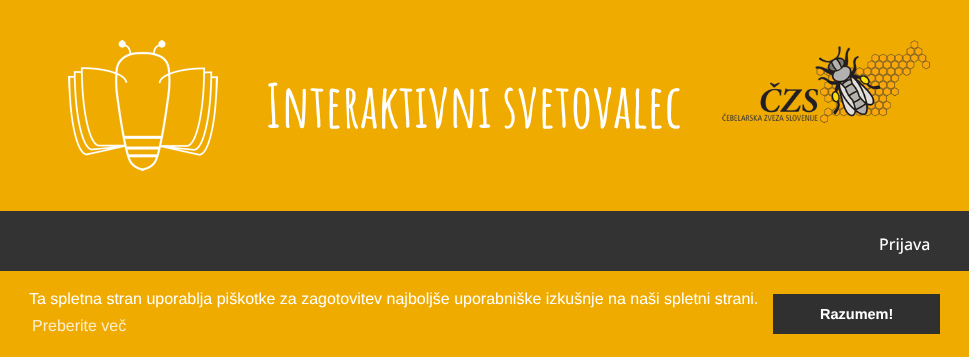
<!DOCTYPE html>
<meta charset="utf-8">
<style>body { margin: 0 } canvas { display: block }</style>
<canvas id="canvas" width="969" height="357"></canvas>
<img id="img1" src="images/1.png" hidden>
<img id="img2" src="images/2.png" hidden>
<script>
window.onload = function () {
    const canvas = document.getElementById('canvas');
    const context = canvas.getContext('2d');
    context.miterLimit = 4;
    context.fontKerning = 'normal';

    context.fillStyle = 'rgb(240, 171, 0)';
    context.fillRect(0, 0, 969, 357);
    context.drawImage(document.getElementById('img1'), 68, 40, 150, 131);
    context.drawImage(document.getElementById('img2'), 722, 40, 208, 83);
    context.fillStyle = 'rgb(51, 51, 51)';
    context.fillRect(0, 211, 969, 60);
    context.fillStyle = 'rgb(48, 48, 48)';
    context.fillRect(773, 294, 167, 40);
    context.font = 'bold 60px Amatic SC';
    context.fillStyle = 'rgb(255, 255, 255)';
    context.fillText('Interaktivni svetovalec', 266, 128);
    context.font = '500 16px Open Sans';
    context.fillText('Prijava', 879, 250);
    context.font = '16px Liberation Sans';
    context.fillText('Ta spletna stran uporablja piškotke za zagotovitev najboljše uporabniške izkušnje na naši spletni strani.', 29, 304);
    context.fillStyle = 'rgb(252, 238, 204)';
    context.fillText('Preberite več', 32, 331);
    context.font = 'bold 14.5px Liberation Sans';
    context.fillStyle = 'rgb(255, 255, 255)';
    context.fillText('Razumem!', 820, 319);
};
</script>
